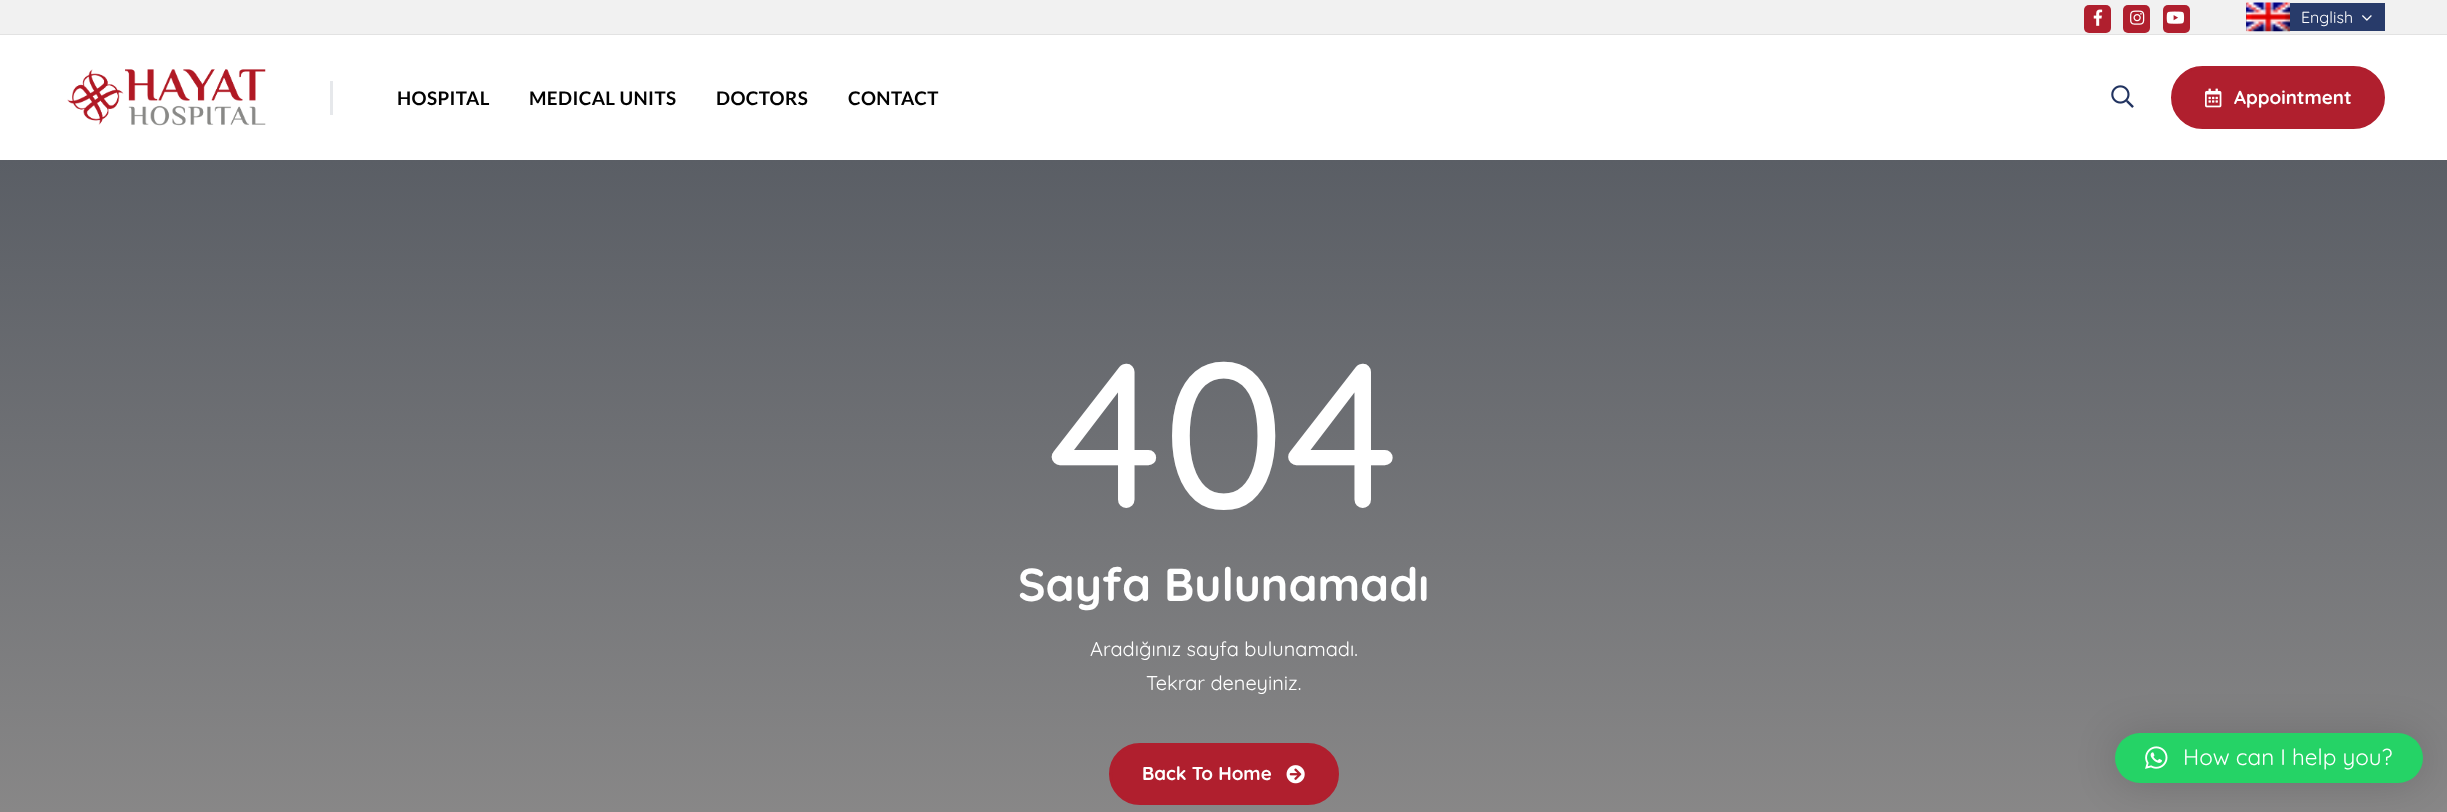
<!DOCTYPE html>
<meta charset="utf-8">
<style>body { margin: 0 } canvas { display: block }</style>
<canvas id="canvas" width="2447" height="812"></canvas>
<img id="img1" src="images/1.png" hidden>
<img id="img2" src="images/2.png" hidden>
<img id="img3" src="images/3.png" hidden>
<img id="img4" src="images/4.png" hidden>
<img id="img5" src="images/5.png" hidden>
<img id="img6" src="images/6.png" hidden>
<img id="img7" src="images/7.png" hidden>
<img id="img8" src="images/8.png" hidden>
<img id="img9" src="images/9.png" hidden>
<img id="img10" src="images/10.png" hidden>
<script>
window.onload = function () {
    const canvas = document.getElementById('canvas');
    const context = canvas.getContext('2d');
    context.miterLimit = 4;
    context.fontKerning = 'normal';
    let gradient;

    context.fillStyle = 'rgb(255, 255, 255)';
    context.fillRect(0, 0, 2447, 812);
    context.fillStyle = 'rgb(241, 241, 241)';
    context.fillRect(0, 0, 2447, 34);
    context.fillStyle = 'rgb(226, 226, 226)';
    context.fillRect(0, 34, 2447, 1);
    context.fillStyle = 'rgb(176, 31, 46)';
    context.beginPath();
    context.roundRect(2084, 5, 27, 28, 5);
    context.fill();
    context.drawImage(document.getElementById('img1'), 2093, 9, 10, 17);
    context.beginPath();
    context.roundRect(2123, 5, 27, 28, 5);
    context.fill();
    context.drawImage(document.getElementById('img2'), 2130, 10, 15, 15);
    context.beginPath();
    context.roundRect(2163, 5, 27, 28, 5);
    context.fill();
    context.drawImage(document.getElementById('img3'), 2166, 11, 19, 13);
    context.fillStyle = 'rgb(40, 59, 106)';
    context.fillRect(2246, 3, 139, 28);
    context.drawImage(document.getElementById('img4'), 2246, 2, 44, 30);
    context.drawImage(document.getElementById('img5'), 2362, 15, 10, 6);
    context.drawImage(document.getElementById('img6'), 67, 69, 199, 57);
    context.fillStyle = 'rgb(230, 232, 235)';
    context.fillRect(330, 81, 3, 34);
    context.drawImage(document.getElementById('img7'), 2111, 85, 23, 23);
    context.fillStyle = 'rgb(176, 31, 46)';
    context.beginPath();
    context.roundRect(2172.5, 67.5, 211, 60, 30);
    context.fill();
    context.strokeStyle = 'rgb(176, 31, 46)';
    context.lineWidth = 3;
    context.stroke();
    context.drawImage(document.getElementById('img8'), 2205, 88, 17, 20);
    gradient = context.createLinearGradient(1224, 160, 1224, 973);
    gradient.addColorStop(0, 'rgb(90, 94, 101)');
    gradient.addColorStop(0.82, 'rgb(137, 136, 136)');
    context.fillStyle = gradient;
    context.fillRect(0, 160, 2447, 652);
    context.fillStyle = 'rgb(176, 31, 46)';
    context.beginPath();
    context.roundRect(1110.5, 744.5, 227, 59, 29.5);
    context.fill();
    context.stroke();
    context.drawImage(document.getElementById('img9'), 1286, 765, 19, 19);
    context.fillStyle = 'rgba(0, 0, 0, 0.16)';
    context.filter = 'blur(20px)';
    context.beginPath();
    context.roundRect(2115, 735, 308, 50, 25);
    context.fill();
    context.filter = 'none';
    context.fillStyle = 'rgb(37, 211, 102)';
    context.beginPath();
    context.roundRect(2115, 733, 308, 50, 25);
    context.fill();
    context.drawImage(document.getElementById('img10'), 2145, 746, 23, 23);
    context.font = '16px Quicksand';
    context.fillStyle = 'rgb(255, 255, 255)';
    context.fillText('English', 2301, 23);
    context.letterSpacing = '0.4px';
    context.font = 'bold 18.75px Lato';
    context.fillStyle = 'rgb(2, 2, 2)';
    context.fillText('HOSPITAL', 397, 105);
    context.fillText('MEDICAL UNITS', 529, 105);
    context.fillText('DOCTORS', 716, 105);
    context.fillText('CONTACT', 848, 105);
    context.letterSpacing = '0px';
    context.font = 'bold 18.75px Quicksand';
    context.fillStyle = 'rgb(255, 255, 255)';
    context.fillText('Appointment', 2234, 104);
    context.font = '500 206px Quicksand';
    context.fillText('404', 1049, 508);
    context.font = 'bold 46.25px Quicksand';
    context.fillText('Sayfa Bulunamadı', 1018, 601);
    context.font = '20px Quicksand';
    context.fillText('Aradığınız sayfa bulunamadı.', 1090, 656);
    context.fillText('Tekrar deneyiniz.', 1146, 690);
    context.font = 'bold 18.75px Quicksand';
    context.fillText('Back To Home', 1142, 780);
    context.font = '22.5px Quicksand';
    context.fillText('How can I help you?', 2183, 765);
};
</script>
